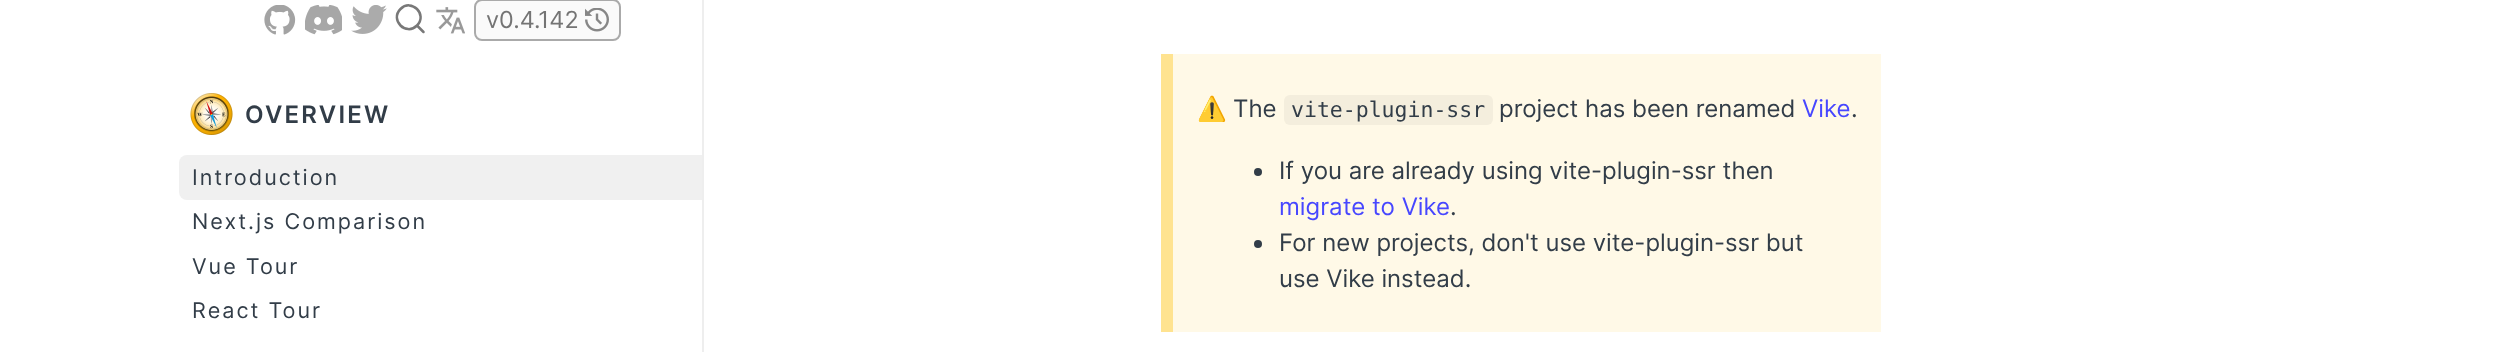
<!DOCTYPE html>
<meta charset="utf-8">
<style>body { margin: 0 } canvas { display: block }</style>
<canvas id="canvas" width="2516" height="352"></canvas>
<img id="img1" src="images/1.png" hidden>
<img id="img2" src="images/2.png" hidden>
<img id="img3" src="images/3.png" hidden>
<img id="img4" src="images/4.png" hidden>
<img id="img5" src="images/5.png" hidden>
<img id="img6" src="images/6.png" hidden>
<script>
window.onload = function () {
    const canvas = document.getElementById('canvas');
    const context = canvas.getContext('2d');
    context.miterLimit = 4;
    context.fontKerning = 'normal';

    context.fillStyle = 'rgb(255, 255, 255)';
    context.fillRect(0, 0, 2516, 352);
    context.fillStyle = 'rgb(238, 238, 238)';
    context.fillRect(702, 0, 2, 352);
    context.drawImage(document.getElementById('img1'), 264, 5, 32, 30);
    context.drawImage(document.getElementById('img2'), 305, 5, 37, 30);
    context.drawImage(document.getElementById('img3'), 351, 5, 36, 29);
    context.beginPath();
    context.moveTo(417, 25.5);
    context.lineTo(423.5, 32);
    context.lineTo(417, 25.5);
    context.bezierCurveTo(406, 36.5, 389.5, 20, 400.5, 9);
    context.bezierCurveTo(411.5, -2, 428, 14.5, 417, 25.5);
    context.closePath();
    context.strokeStyle = 'rgb(120, 120, 120)';
    context.lineWidth = 2.5;
    context.lineCap = 'round';
    context.lineJoin = 'round';
    context.stroke();
    context.drawImage(document.getElementById('img4'), 436, 7, 29, 27);
    context.fillStyle = 'rgb(250, 250, 250)';
    context.beginPath();
    context.roundRect(475, 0, 145, 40, 7);
    context.fill();
    context.strokeStyle = 'rgb(170, 170, 170)';
    context.lineWidth = 2;
    context.lineJoin = 'miter';
    context.stroke();
    context.drawImage(document.getElementById('img5'), 585, 8, 24, 24);
    context.drawImage(document.getElementById('img6'), 190, 93, 43, 42);
    context.fillStyle = 'rgb(240, 240, 240)';
    context.beginPath();
    context.roundRect(179, 155, 523, 45, [8, 0, 0, 8]);
    context.fill();
    context.fillStyle = 'rgb(255, 249, 231)';
    context.fillRect(1173, 54, 708, 278);
    context.fillStyle = 'rgb(255, 227, 144)';
    context.fillRect(1161, 54, 12, 278);
    context.fillStyle = 'rgb(244, 238, 221)';
    context.beginPath();
    context.roundRect(1284, 95, 209, 30, 6);
    context.fill();
    context.fillStyle = 'rgb(50, 61, 72)';
    context.beginPath();
    context.arc(1258, 172, 4, 0, 2 * Math.PI);
    context.fill();
    context.beginPath();
    context.arc(1258, 244, 4, 0, 2 * Math.PI);
    context.fill();
    context.font = 'italic 23.5px Inter';
    context.fillStyle = 'rgb(116, 116, 116)';
    context.fillText('v0.4.142', 486, 28);
    context.letterSpacing = '2.25px';
    context.font = 'italic 600 24px Inter';
    context.fillStyle = 'rgb(50, 61, 72)';
    context.fillText('OVERVIEW', 245, 123);
    context.letterSpacing = '2px';
    context.font = 'italic 21.6px Inter';
    context.fillText('Introduction', 192, 185);
    context.fillText('Next.js Comparison', 192, 229);
    context.fillText('Vue Tour', 192, 274);
    context.fillText('React Tour', 192, 318);
    context.letterSpacing = '0px';
    context.font = '24px Noto Color Emoji';
    context.fillText('⚠️', 1197, 117);
    context.font = 'italic 24px Inter';
    context.fillText('The', 1233, 117);
    context.font = '21.5px DejaVu Sans Mono';
    context.fillText('vite-plugin-ssr', 1291, 117);
    context.font = 'italic 24px Inter';
    context.fillText('project has been renamed', 1499, 117);
    context.fillStyle = 'rgb(71, 71, 255)';
    context.fillText('Vike', 1802, 117);
    context.fillStyle = 'rgb(50, 61, 72)';
    context.fillText('.', 1851, 117);
    context.fillText('If you are already using vite-plugin-ssr then', 1279, 179);
    context.fillStyle = 'rgb(71, 71, 255)';
    context.fillText('migrate to Vike', 1279, 215);
    context.fillStyle = 'rgb(50, 61, 72)';
    context.fillText('.', 1450, 215);
    context.fillText('For new projects, don\'t use vite-plugin-ssr but', 1279, 251);
    context.fillText('use Vike instead.', 1279, 287);
};
</script>
